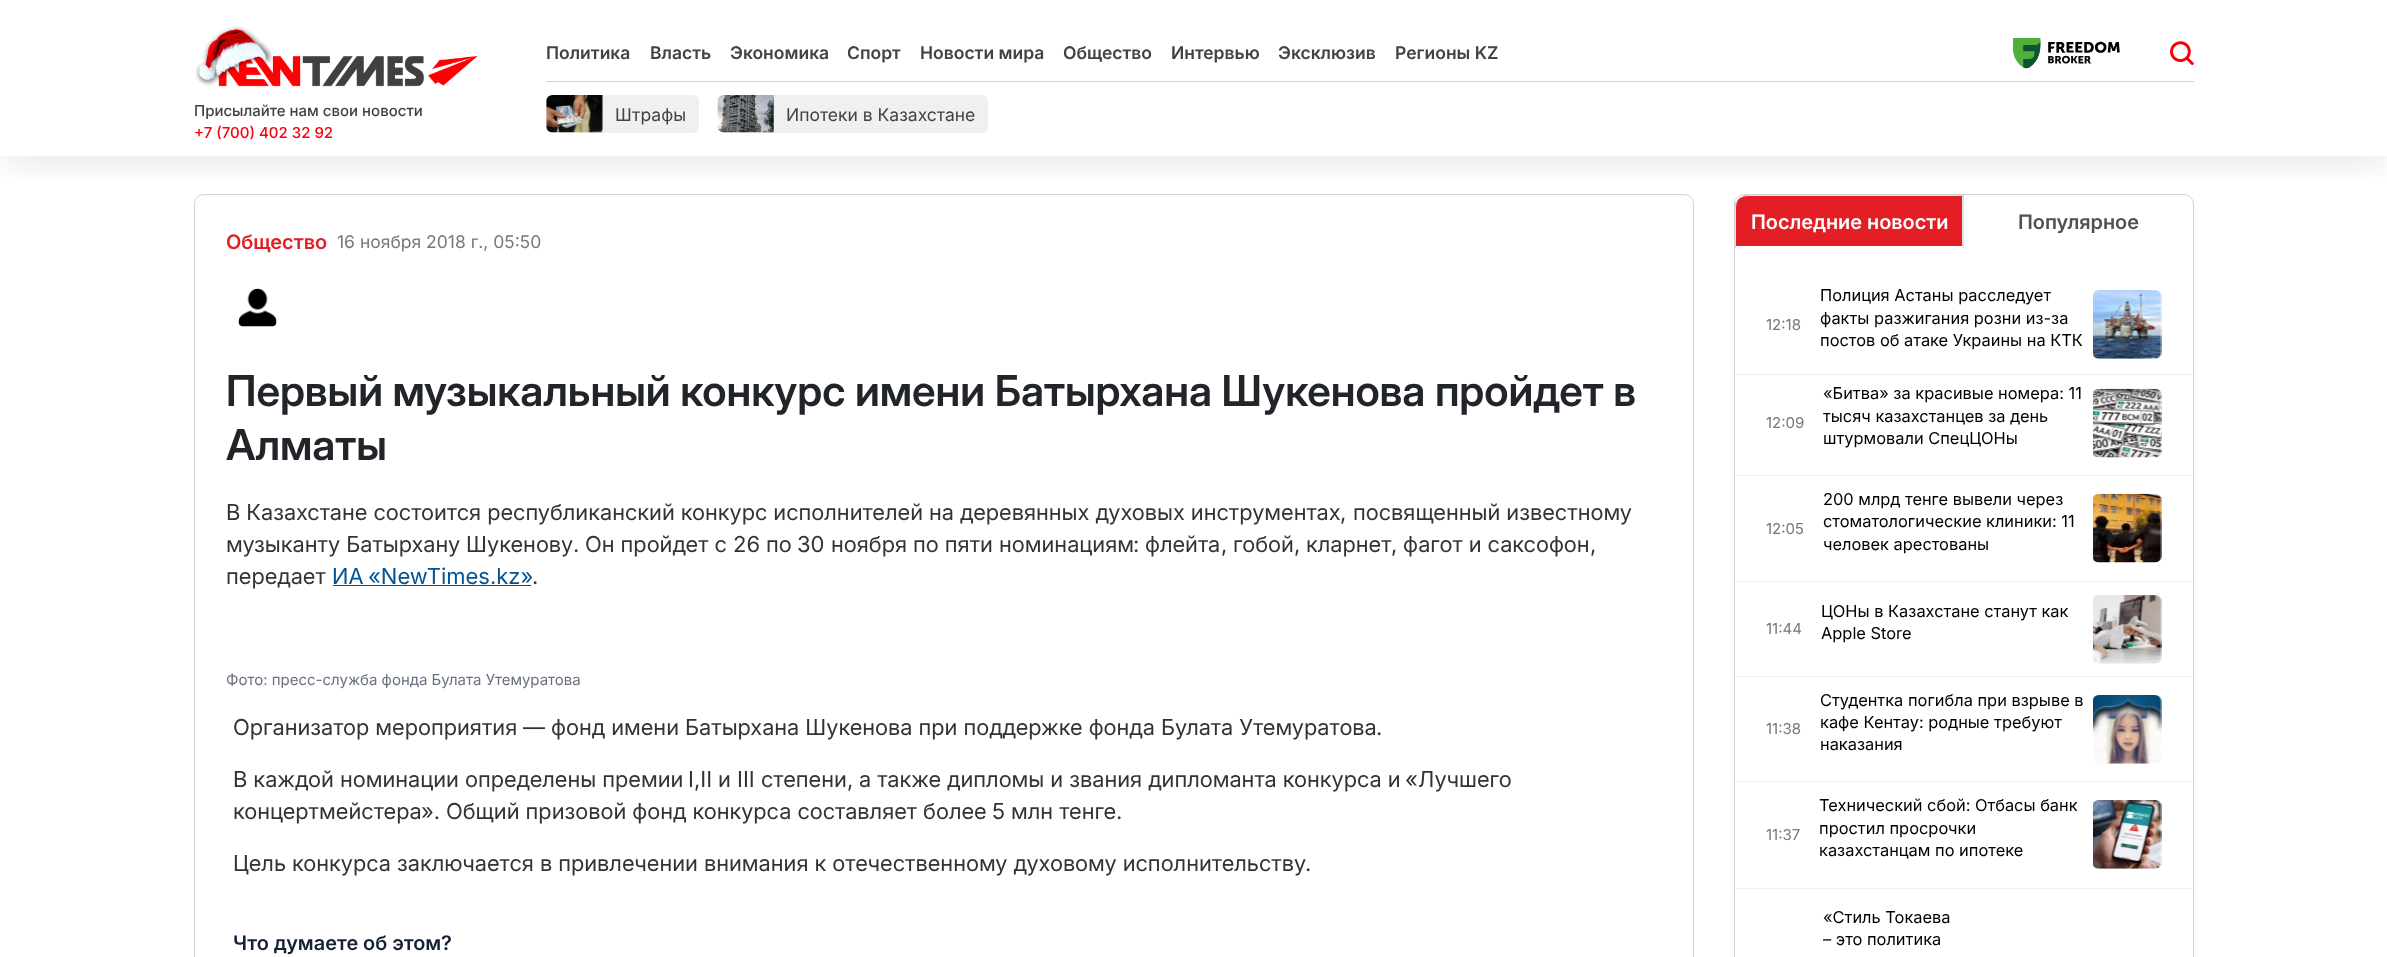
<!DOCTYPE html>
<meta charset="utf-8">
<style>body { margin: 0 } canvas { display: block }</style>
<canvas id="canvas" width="2387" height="957"></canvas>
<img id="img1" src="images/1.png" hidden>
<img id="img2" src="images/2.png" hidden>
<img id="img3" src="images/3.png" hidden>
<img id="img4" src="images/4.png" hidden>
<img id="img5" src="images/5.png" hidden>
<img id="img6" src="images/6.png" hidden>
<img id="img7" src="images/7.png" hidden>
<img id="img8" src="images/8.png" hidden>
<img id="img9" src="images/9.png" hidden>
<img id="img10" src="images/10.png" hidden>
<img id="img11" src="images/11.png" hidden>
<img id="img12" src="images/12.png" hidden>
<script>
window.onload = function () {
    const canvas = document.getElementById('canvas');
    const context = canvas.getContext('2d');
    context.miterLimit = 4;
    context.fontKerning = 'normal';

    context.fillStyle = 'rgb(255, 255, 255)';
    context.fillRect(0, 0, 2387, 957);
    context.beginPath();
    context.roundRect(194.5, 194.5, 1499, 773, 9.5);
    context.strokeStyle = 'rgb(210, 210, 210)';
    context.stroke();
    context.save();
    context.beginPath();
    context.rect(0, 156, 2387, 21);
    context.clip();
    context.fillStyle = 'rgba(0, 0, 0, 0.1)';
    context.filter = 'blur(19px)';
    context.beginPath();
    context.rect(0, 5, 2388, 156);
    context.fill();
    context.filter = 'none';
    context.restore();
    context.drawImage(document.getElementById('img1'), 195, 26, 283, 61);
    context.fillStyle = 'rgb(210, 210, 210)';
    context.fillRect(546, 81, 1648, 1);
    context.drawImage(document.getElementById('img2'), 2013, 38, 107, 31);
    context.drawImage(document.getElementById('img3'), 2170, 41, 24, 24);
    context.fillStyle = 'rgb(240, 240, 240)';
    context.beginPath();
    context.roundRect(546, 95, 153, 38, 6);
    context.fill();
    context.drawImage(document.getElementById('img4'), 546, 95, 57, 38);
    context.beginPath();
    context.roundRect(718, 95, 270, 38, 6);
    context.fill();
    context.drawImage(document.getElementById('img5'), 717, 95, 57, 38);
    context.drawImage(document.getElementById('img6'), 238, 288, 39, 39);
    context.fillStyle = 'rgb(0, 83, 148)';
    context.fillRect(333, 585, 198, 1);
    context.beginPath();
    context.roundRect(1734.5, 194.5, 459, 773, 9.5);
    context.stroke();
    context.fillStyle = 'rgb(227, 30, 36)';
    context.beginPath();
    context.roundRect(1735, 195, 229, 53, [13, 0, 0, 0]);
    context.fill();
    context.fillStyle = 'rgb(222, 226, 230)';
    context.beginPath();
    context.moveTo(1748, 195);
    context.bezierCurveTo(1744, 195, 1741, 196, 1739, 199);
    context.bezierCurveTo(1742, 197, 1744, 196, 1748, 196);
    context.lineTo(1962, 196);
    context.lineTo(1962, 197);
    context.lineTo(1964, 195);
    context.closePath();
    context.fill();
    context.beginPath();
    context.moveTo(1964, 195);
    context.lineTo(1962, 197);
    context.lineTo(1962, 246);
    context.lineTo(1964, 248);
    context.closePath();
    context.fill();
    context.fillStyle = 'rgb(255, 255, 255)';
    context.beginPath();
    context.moveTo(1964, 248);
    context.lineTo(1962, 246);
    context.lineTo(1736, 246);
    context.lineTo(1735, 248);
    context.closePath();
    context.fill();
    context.fillStyle = 'rgb(222, 226, 230)';
    context.beginPath();
    context.moveTo(1735, 248);
    context.lineTo(1736, 246);
    context.lineTo(1736, 208);
    context.bezierCurveTo(1736, 204, 1737, 202, 1739, 199);
    context.bezierCurveTo(1736, 201, 1735, 204, 1735, 208);
    context.closePath();
    context.fill();
    context.fillStyle = 'rgb(238, 238, 238)';
    context.fillRect(1735, 374, 458, 1);
    context.drawImage(document.getElementById('img7'), 2093, 290, 69, 69);
    context.fillRect(1735, 475, 458, 1);
    context.drawImage(document.getElementById('img8'), 2093, 388, 69, 70);
    context.fillRect(1735, 581, 458, 1);
    context.drawImage(document.getElementById('img9'), 2093, 493, 69, 70);
    context.fillRect(1735, 676, 458, 1);
    context.drawImage(document.getElementById('img10'), 2093, 595, 69, 69);
    context.fillRect(1735, 781, 458, 1);
    context.drawImage(document.getElementById('img11'), 2093, 695, 69, 69);
    context.fillRect(1735, 888, 458, 1);
    context.drawImage(document.getElementById('img12'), 2093, 800, 69, 69);
    context.font = '500 15px Inter';
    context.fillStyle = 'rgb(67, 66, 66)';
    context.fillText('Присылайте нам свои новости', 194, 116);
    context.fillStyle = 'rgb(248, 0, 11)';
    context.fillText('+7 (700) 402 32 92', 194, 138);
    context.font = '600 17.5px "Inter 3"';
    context.fillStyle = 'rgb(67, 66, 66)';
    context.fillText('Политика', 546, 59);
    context.fillText('Власть', 650, 59);
    context.fillText('Экономика', 730, 59);
    context.fillText('Спорт', 847, 59);
    context.fillText('Новости мира', 920, 59);
    context.fillText('Общество', 1063, 59);
    context.fillText('Интервью', 1171, 59);
    context.fillText('Эксклюзив', 1278, 59);
    context.fillText('Регионы KZ', 1395, 59);
    context.font = '17.5px Inter';
    context.fillText('Штрафы', 615, 121);
    context.fillText('Ипотеки в Казахстане', 786, 121);
    context.font = '600 20px Inter';
    context.fillStyle = 'rgb(227, 30, 36)';
    context.fillText('Общество', 226, 249);
    context.font = '17.5px Inter';
    context.fillStyle = 'rgb(119, 119, 119)';
    context.fillText('16 ноября 2018 г., 05:50', 337, 248);
    context.font = '600 42.5px "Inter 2"';
    context.fillStyle = 'rgb(33, 37, 41)';
    context.fillText('Первый музыкальный конкурс имени Батырхана Шукенова пройдет в', 226, 406);
    context.fillText('Алматы', 226, 460);
    context.font = '22px "Inter 2"';
    context.fillStyle = 'rgb(51, 51, 51)';
    context.fillText('В Казахстане состоится республиканский конкурс исполнителей на деревянных духовых инструментах', 226, 520);
    context.font = '22px Inter';
    context.fillText(',', 1340, 520);
    context.font = '22px "Inter 2"';
    context.fillText('посвященный известному', 1353, 520);
    context.fillText('музыканту Батырхану Шукенову', 226, 552);
    context.font = '22px Inter';
    context.fillText('.', 573, 552);
    context.font = '22px "Inter 2"';
    context.fillText('Он пройдет с', 585, 552);
    context.font = '22px Inter';
    context.fillText('26', 733, 552);
    context.font = '22px "Inter 2"';
    context.fillText('по', 766, 552);
    context.font = '22px Inter';
    context.fillText('30', 797, 552);
    context.font = '22px "Inter 2"';
    context.fillText('ноября по пяти номинациям', 831, 552);
    context.font = '22px Inter';
    context.fillText(':', 1133, 552);
    context.font = '22px "Inter 2"';
    context.fillText('флейта', 1145, 552);
    context.font = '22px Inter';
    context.fillText(',', 1221, 552);
    context.font = '22px "Inter 2"';
    context.fillText('гобой', 1233, 552);
    context.font = '22px Inter';
    context.fillText(',', 1294, 552);
    context.font = '22px "Inter 2"';
    context.fillText('кларнет', 1306, 552);
    context.font = '22px Inter';
    context.fillText(',', 1391, 552);
    context.font = '22px "Inter 2"';
    context.fillText('фагот и саксофон', 1403, 552);
    context.font = '22px Inter';
    context.fillText(',', 1590, 552);
    context.font = '22px "Inter 2"';
    context.fillText('передает', 226, 584);
    context.fillStyle = 'rgb(0, 83, 148)';
    context.fillText('ИА', 332, 584);
    context.font = '22px Inter';
    context.fillText('«NewTimes.kz»', 368, 584);
    context.fillStyle = 'rgb(51, 51, 51)';
    context.fillText('.', 532, 584);
    context.font = '15px Inter';
    context.fillStyle = 'rgb(104, 112, 130)';
    context.fillText('Фото: пресс-служба фонда Булата Утемуратова', 226, 685);
    context.font = '22px "Inter 2"';
    context.fillStyle = 'rgb(51, 51, 51)';
    context.fillText('Организатор мероприятия', 233, 735);
    context.font = '22px Inter';
    context.fillText('—', 523, 735);
    context.font = '22px "Inter 2"';
    context.fillText('фонд имени Батырхана Шукенова при поддержке фонда Булата Утемуратова', 551, 735);
    context.font = '22px Inter';
    context.fillText('.', 1376, 735);
    context.font = '22px "Inter 2"';
    context.fillText('В каждой номинации определены премии', 233, 787);
    context.font = '22px Inter';
    context.fillText('I,II', 688, 787);
    context.font = '22px "Inter 2"';
    context.fillText('и', 718, 787);
    context.font = '22px Inter';
    context.fillText('III', 737, 787);
    context.font = '22px "Inter 2"';
    context.fillText('степени', 761, 787);
    context.fillText('а также дипломы и звания дипломанта конкурса и', 859, 787);
    context.font = '22px Inter';
    context.fillText('«', 1405, 787);
    context.font = '22px "Inter 2"';
    context.fillText('Лучшего', 1418, 787);
    context.font = '22px Inter';
    context.fillText(',', 847, 787);
    context.font = '22px "Inter 2"';
    context.fillText('концертмейстера', 233, 819);
    context.font = '22px Inter';
    context.fillText('».', 421, 819);
    context.font = '22px "Inter 2"';
    context.fillText('Общий призовой фонд конкурса составляет более', 446, 819);
    context.font = '22px Inter';
    context.fillText('5', 992, 819);
    context.font = '22px "Inter 2"';
    context.fillText('млн тенге', 1011, 819);
    context.font = '22px Inter';
    context.fillText('.', 1116, 819);
    context.font = '22px "Inter 2"';
    context.fillText('Цель конкурса заключается в привлечении внимания к отечественному духовому исполнительству', 233, 871);
    context.font = '22px Inter';
    context.fillText('.', 1305, 871);
    context.font = '600 20px Inter';
    context.fillStyle = 'rgb(22, 33, 54)';
    context.fillText('Что думаете об этом', 233, 950);
    context.font = '600 20px "Inter 3"';
    context.fillText('?', 441, 950);
    context.font = '600 20px Inter';
    context.fillStyle = 'rgb(255, 255, 255)';
    context.fillText('Последние новости', 1751, 229);
    context.fillStyle = 'rgb(81, 81, 81)';
    context.fillText('Популярное', 2018, 229);
    context.font = '15px Inter';
    context.fillStyle = 'rgb(119, 119, 119)';
    context.fillText('12:18', 1766, 330);
    context.font = '16.4px Inter';
    context.fillStyle = 'rgb(0, 0, 0)';
    context.fillText('Полиция Астаны расследует', 1820, 301);
    context.fillText('факты разжигания розни из-за', 1820, 324);
    context.fillText('постов об атаке Украины на КТК', 1820, 346);
    context.font = '15px Inter';
    context.fillStyle = 'rgb(119, 119, 119)';
    context.fillText('12:09', 1766, 428);
    context.font = '16.4px Inter';
    context.fillStyle = 'rgb(0, 0, 0)';
    context.fillText('«Битва» за красивые номера: 11', 1823, 399);
    context.fillText('тысяч казахстанцев за день', 1823, 422);
    context.fillText('штурмовали СпецЦОНы', 1823, 444);
    context.font = '15px Inter';
    context.fillStyle = 'rgb(119, 119, 119)';
    context.fillText('12:05', 1766, 534);
    context.font = '16.4px Inter';
    context.fillStyle = 'rgb(0, 0, 0)';
    context.fillText('200 млрд тенге вывели через', 1823, 505);
    context.fillText('стоматологические клиники: 11', 1823, 527);
    context.fillText('человек арестованы', 1823, 550);
    context.font = '15px Inter';
    context.fillStyle = 'rgb(119, 119, 119)';
    context.fillText('11:44', 1766, 634);
    context.font = '16.4px Inter';
    context.fillStyle = 'rgb(0, 0, 0)';
    context.fillText('ЦОНы в Казахстане станут как', 1821, 617);
    context.fillText('Apple Store', 1821, 639);
    context.font = '15px Inter';
    context.fillStyle = 'rgb(119, 119, 119)';
    context.fillText('11:38', 1766, 734);
    context.font = '16.4px Inter';
    context.fillStyle = 'rgb(0, 0, 0)';
    context.fillText('Студентка погибла при взрыве в', 1820, 706);
    context.fillText('кафе Кентау: родные требуют', 1820, 728);
    context.fillText('наказания', 1820, 750);
    context.font = '15px Inter';
    context.fillStyle = 'rgb(119, 119, 119)';
    context.fillText('11:37', 1766, 840);
    context.font = '16.4px Inter';
    context.fillStyle = 'rgb(0, 0, 0)';
    context.fillText('Технический сбой: Отбасы банк', 1819, 811);
    context.fillText('простил просрочки', 1819, 834);
    context.fillText('казахстанцам по ипотеке', 1819, 856);
    context.fillText('«Стиль Токаева', 1823, 923);
    context.fillText('– это политика', 1823, 945);
};
</script>
